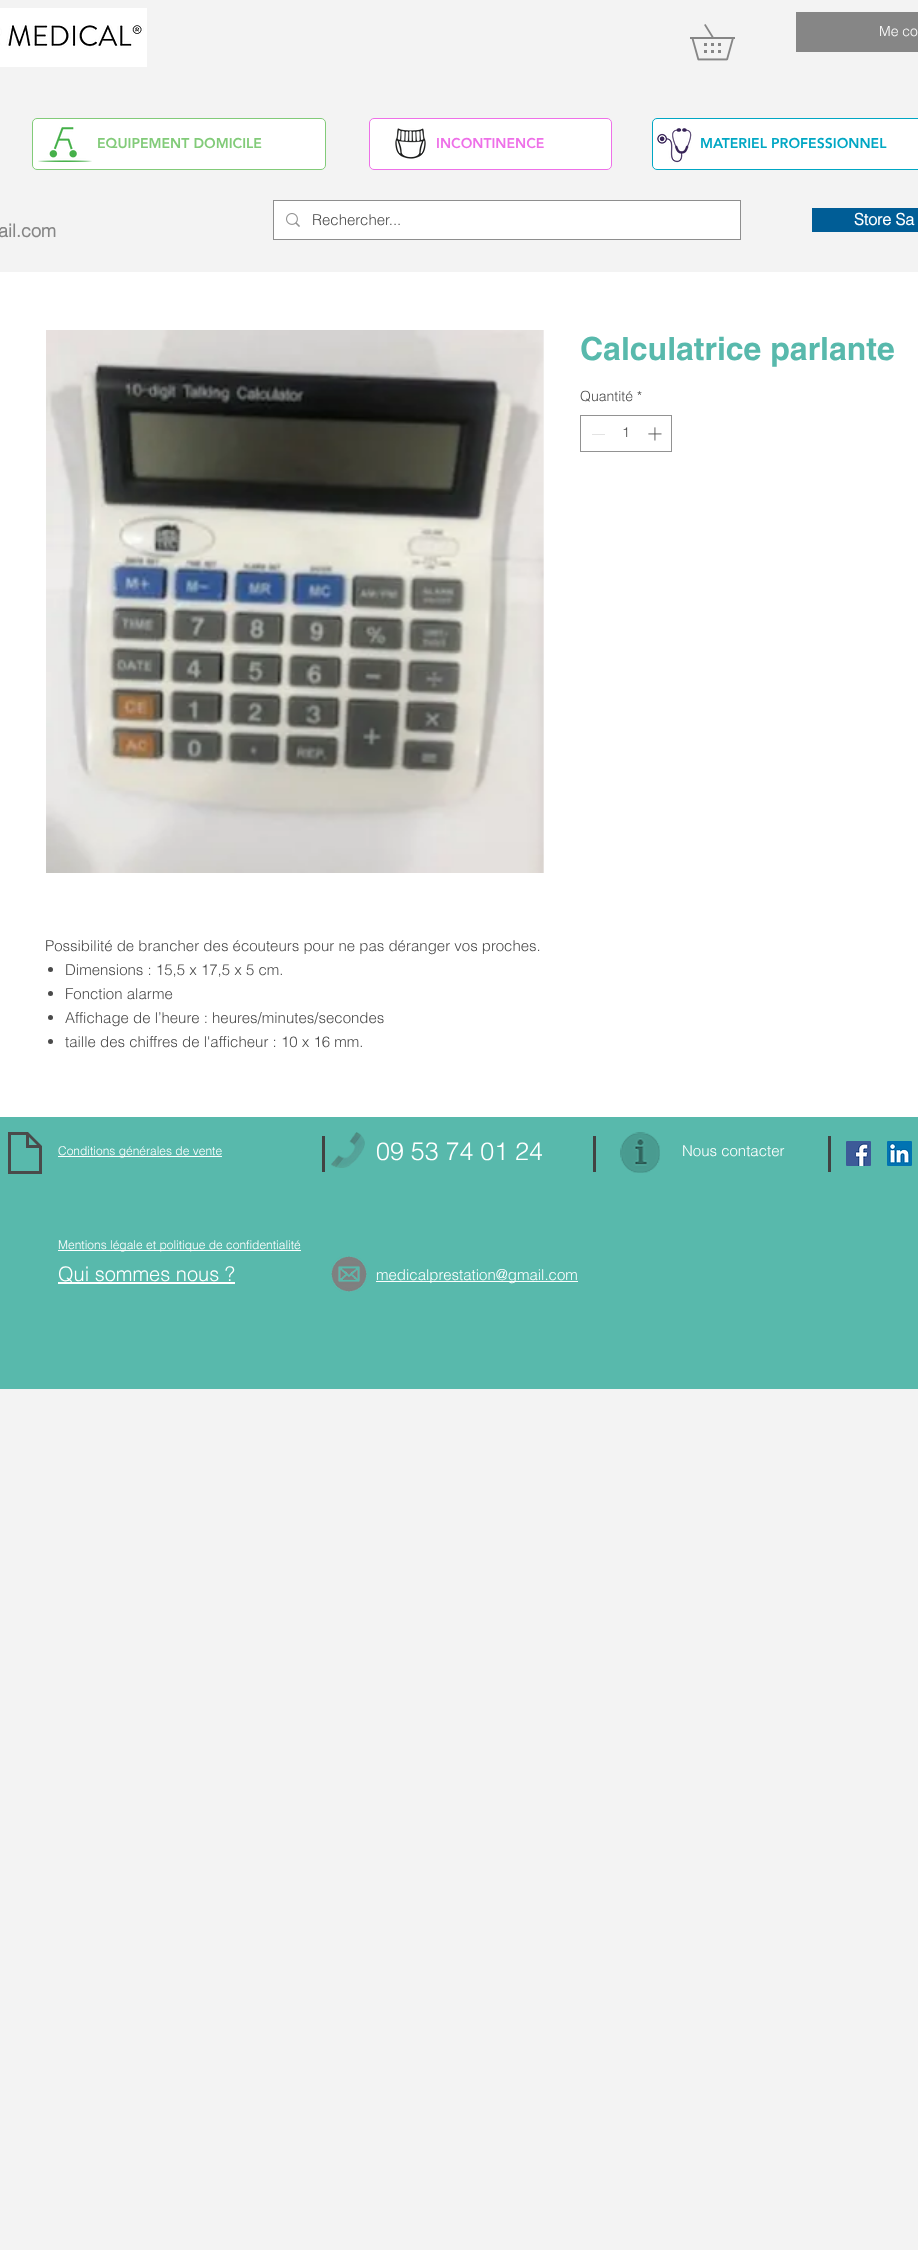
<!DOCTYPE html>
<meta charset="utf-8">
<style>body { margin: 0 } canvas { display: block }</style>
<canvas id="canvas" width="918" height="2250"></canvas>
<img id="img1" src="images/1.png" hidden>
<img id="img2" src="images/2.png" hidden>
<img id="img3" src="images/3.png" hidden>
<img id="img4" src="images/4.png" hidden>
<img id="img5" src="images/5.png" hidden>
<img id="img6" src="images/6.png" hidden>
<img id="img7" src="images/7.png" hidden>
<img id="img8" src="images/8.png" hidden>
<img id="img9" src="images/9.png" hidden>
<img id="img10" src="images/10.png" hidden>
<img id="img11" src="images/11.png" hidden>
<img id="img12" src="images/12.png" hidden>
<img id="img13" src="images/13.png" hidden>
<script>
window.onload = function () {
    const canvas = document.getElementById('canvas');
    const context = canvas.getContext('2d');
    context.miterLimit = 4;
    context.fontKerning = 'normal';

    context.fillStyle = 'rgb(243, 243, 243)';
    context.fillRect(0, 0, 918, 2250);
    context.drawImage(document.getElementById('img1'), 0, 8, 147, 59);
    context.drawImage(document.getElementById('img2'), 690, 24, 45, 37);
    context.fillStyle = 'rgb(134, 134, 134)';
    context.fillRect(796, 12, 122, 40);
    context.fillStyle = 'rgb(255, 255, 255)';
    context.beginPath();
    context.roundRect(32.5, 118.5, 293, 51, 4.5);
    context.fill();
    context.strokeStyle = 'rgb(130, 203, 121)';
    context.stroke();
    context.drawImage(document.getElementById('img3'), 38, 127, 54, 35);
    context.beginPath();
    context.roundRect(369.5, 118.5, 242, 51, 4.5);
    context.fill();
    context.strokeStyle = 'rgb(238, 112, 232)';
    context.stroke();
    context.drawImage(document.getElementById('img4'), 395, 128, 31, 31);
    context.beginPath();
    context.roundRect(652.5, 118.5, 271, 51, 4.5);
    context.fill();
    context.strokeStyle = 'rgb(0, 167, 196)';
    context.stroke();
    context.drawImage(document.getElementById('img5'), 657, 128, 35, 35);
    context.strokeStyle = 'rgb(142, 142, 142)';
    context.strokeRect(273.5, 200.5, 467, 39);
    context.fillRect(274, 201, 466, 38);
    context.drawImage(document.getElementById('img6'), 286, 213, 14, 14);
    context.fillStyle = 'rgb(0, 93, 150)';
    context.fillRect(812, 208, 106, 24);
    context.fillStyle = 'rgb(255, 255, 255)';
    context.fillRect(0, 272, 918, 845);
    context.strokeStyle = 'rgb(146, 146, 146)';
    context.strokeRect(580.5, 415.5, 91, 36);
    context.fillStyle = 'rgb(227, 227, 227)';
    context.fillRect(592, 434, 13, 1);
    context.drawImage(document.getElementById('img7'), 648, 427, 14, 14);
    context.drawImage(document.getElementById('img8'), 46, 330, 498, 543);
    context.fillStyle = 'rgb(74, 74, 74)';
    context.beginPath();
    context.arc(50.5, 969.5, 2.5, 0, 2 * Math.PI);
    context.fill();
    context.beginPath();
    context.arc(50.5, 993.5, 2.5, 0, 2 * Math.PI);
    context.fill();
    context.beginPath();
    context.arc(50.5, 1017.5, 2.5, 0, 2 * Math.PI);
    context.fill();
    context.beginPath();
    context.arc(50.5, 1041.5, 2.5, 0, 2 * Math.PI);
    context.fill();
    context.fillStyle = 'rgb(88, 185, 172)';
    context.fillRect(0, 1117, 918, 272);
    context.fillStyle = 'rgb(74, 74, 74)';
    context.beginPath();
    context.moveTo(28, 1132);
    context.lineTo(8, 1132);
    context.lineTo(8, 1174);
    context.lineTo(42, 1174);
    context.lineTo(42, 1146);
    context.closePath();
    context.moveTo(29, 1137);
    context.lineTo(37, 1145);
    context.lineTo(29, 1145);
    context.closePath();
    context.moveTo(11, 1171);
    context.lineTo(11, 1135);
    context.lineTo(26, 1135);
    context.lineTo(26, 1148);
    context.lineTo(39, 1148);
    context.lineTo(39, 1171);
    context.closePath();
    context.fill();
    context.fillStyle = 'rgb(255, 255, 255)';
    context.fillRect(58, 1156, 164, 1);
    context.fillStyle = 'rgb(66, 66, 66)';
    context.fillRect(322, 1136, 3, 36);
    context.drawImage(document.getElementById('img9'), 331, 1132, 34, 36);
    context.fillRect(593, 1136, 3, 36);
    context.drawImage(document.getElementById('img10'), 620, 1132, 40, 41);
    context.fillRect(828, 1136, 3, 36);
    context.drawImage(document.getElementById('img11'), 846, 1141, 25, 25);
    context.drawImage(document.getElementById('img12'), 887, 1141, 25, 25);
    context.fillStyle = 'rgb(255, 255, 255)';
    context.fillRect(58, 1250, 243, 1);
    context.fillRect(58, 1282, 177, 2);
    context.drawImage(document.getElementById('img13'), 331, 1256, 36, 36);
    context.fillStyle = 'rgb(252, 254, 253)';
    context.fillRect(376, 1281, 202, 1);
    context.font = '300 14px helvetica';
    context.fillStyle = 'rgb(255, 255, 255)';
    context.fillText('Me co', 879, 36);
    context.font = '900 14px "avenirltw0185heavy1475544"';
    context.fillStyle = 'rgb(130, 203, 121)';
    context.fillText('EQUIPEMENT DOMICILE', 97, 148);
    context.fillStyle = 'rgb(238, 112, 232)';
    context.fillText('INCONTINENCE', 436, 148);
    context.fillStyle = 'rgb(0, 167, 196)';
    context.fillText('MATERIEL PROFESSIONNEL', 700, 148);
    context.font = '300 15px helvetica';
    context.fillStyle = 'rgb(74, 74, 74)';
    context.fillText('Rechercher...', 312, 225);
    context.font = 'bold 16px helvetica';
    context.fillStyle = 'rgb(255, 255, 255)';
    context.fillText('Store Sa', 854, 225);
    context.font = 'bold 18px helvetica';
    context.fillStyle = 'rgb(134, 134, 134)';
    context.fillText('ail.com', -2, 237);
    context.font = 'bold 32px "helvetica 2"';
    context.fillStyle = 'rgb(88, 185, 172)';
    context.fillText('Calculatrice parlante', 580, 360);
    context.font = '300 14px helvetica';
    context.fillStyle = 'rgb(74, 74, 74)';
    context.fillText('Quantité *', 580, 401);
    context.fillText('1', 622, 437);
    context.font = '300 15px helvetica';
    context.fillText('Possibilité de brancher des écouteurs pour ne pas déranger vos proches.', 45, 951);
    context.fillText('Dimensions : 15,5 x 17,5 x 5 cm.', 65, 975);
    context.fillText('Fonction alarme', 65, 999);
    context.fillText('Affichage de l’heure : heures/minutes/secondes', 65, 1023);
    context.fillText('taille des chiffres de l\'afficheur : 10 x 16 mm.', 65, 1047);
    context.font = '300 12px helvetica';
    context.fillStyle = 'rgb(255, 255, 255)';
    context.fillText('Conditions générales de vente', 58, 1155);
    context.font = '300 25px helvetica';
    context.fillText('09 53 74 01 24', 376, 1160);
    context.font = '300 15px helvetica';
    context.fillText('Nous contacter', 682, 1156);
    context.font = '300 12px helvetica';
    context.fillText('Mentions légale et politique de confidentialité', 58, 1249);
    context.font = '300 20px helvetica';
    context.fillText('Qui sommes nous ?', 58, 1281);
    context.font = '300 15px helvetica';
    context.fillText('medicalprestation@gmail.com', 376, 1280);
};
</script>
